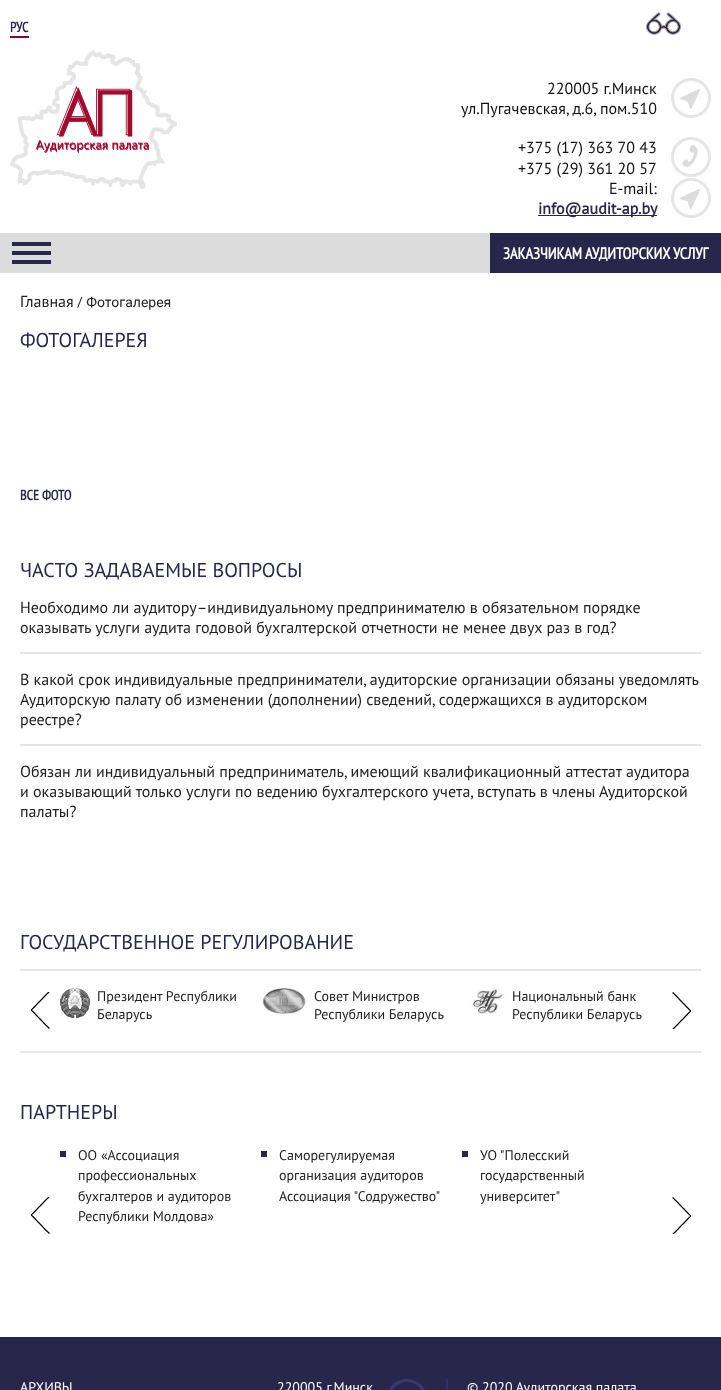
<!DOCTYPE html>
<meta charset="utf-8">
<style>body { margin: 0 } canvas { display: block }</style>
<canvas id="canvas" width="721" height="1390"></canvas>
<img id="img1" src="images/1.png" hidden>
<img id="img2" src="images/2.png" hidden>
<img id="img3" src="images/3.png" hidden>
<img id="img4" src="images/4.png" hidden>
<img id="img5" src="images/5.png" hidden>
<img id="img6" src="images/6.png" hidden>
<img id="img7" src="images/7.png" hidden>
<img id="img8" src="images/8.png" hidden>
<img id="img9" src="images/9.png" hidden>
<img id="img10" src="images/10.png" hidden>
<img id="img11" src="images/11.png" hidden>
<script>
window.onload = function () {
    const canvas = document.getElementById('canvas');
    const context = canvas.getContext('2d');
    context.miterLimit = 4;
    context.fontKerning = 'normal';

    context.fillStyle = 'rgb(255, 255, 255)';
    context.fillRect(0, 0, 721, 1390);
    context.fillStyle = 'rgb(139, 3, 53)';
    context.fillRect(10, 36, 19, 2);
    context.drawImage(document.getElementById('img1'), 646, 12, 35, 23);
    context.drawImage(document.getElementById('img2'), 10, 50, 167, 139);
    context.drawImage(document.getElementById('img3'), 671, 78, 40, 40);
    context.drawImage(document.getElementById('img4'), 671, 137, 40, 40);
    context.drawImage(document.getElementById('img3'), 671, 178, 40, 40);
    context.fillStyle = 'rgb(40, 39, 75)';
    context.fillRect(538, 215, 119, 1);
    context.fillStyle = 'rgb(220, 220, 220)';
    context.fillRect(0, 233, 490, 40);
    context.drawImage(document.getElementById('img5'), 12, 242, 39, 22);
    context.fillStyle = 'rgb(40, 39, 75)';
    context.fillRect(490, 233, 231, 40);
    context.fillStyle = 'rgb(230, 230, 230)';
    context.fillRect(20, 652, 681, 2);
    context.fillRect(20, 744, 681, 2);
    context.fillRect(20, 969, 681, 2);
    context.fillRect(20, 1051, 681, 2);
    context.drawImage(document.getElementById('img6'), 31, 992, 19, 37);
    context.drawImage(document.getElementById('img7'), 60, 988, 30, 30);
    context.drawImage(document.getElementById('img8'), 262, 988, 44, 26);
    context.drawImage(document.getElementById('img9'), 471, 988, 34, 26);
    context.drawImage(document.getElementById('img10'), 672, 992, 19, 37);
    context.drawImage(document.getElementById('img6'), 31, 1197, 19, 37);
    context.fillStyle = 'rgb(40, 39, 75)';
    context.fillRect(60, 1151, 6, 6);
    context.fillRect(261, 1151, 6, 6);
    context.fillRect(462, 1151, 6, 6);
    context.drawImage(document.getElementById('img10'), 672, 1197, 19, 37);
    context.fillStyle = 'rgb(40, 38, 75)';
    context.fillRect(0, 1337, 721, 53);
    context.drawImage(document.getElementById('img11'), 389, 1379, 36, 11);
    context.fillStyle = 'rgb(50, 48, 96)';
    context.fillRect(446, 1379, 2, 11);
    context.font = 'bold 14px PT Sans Narrow';
    context.fillStyle = 'rgb(46, 37, 71)';
    context.fillText('РУС', 10, 32);
    context.font = '16px PT Sans';
    context.fillStyle = 'rgb(18, 18, 18)';
    context.fillText('220005 г.Минск', 547, 94);
    context.fillText('ул.Пугачевская, д.6, пом.510', 461, 114);
    context.fillText('+375 (17) 363 70 43', 518, 153);
    context.fillText('+375 (29) 361 20 57', 518, 174);
    context.fillText('E-mail:', 609, 194);
    context.font = 'bold 16px PT Sans';
    context.fillStyle = 'rgb(40, 39, 75)';
    context.fillText('info@audit-ap.by', 538, 214);
    context.font = 'bold 16px PT Sans Narrow';
    context.fillStyle = 'rgb(255, 255, 255)';
    context.fillText('ЗАКАЗЧИКАМ АУДИТОРСКИХ УСЛУГ', 503, 259);
    context.font = '16px PT Sans';
    context.fillStyle = 'rgb(34, 34, 34)';
    context.fillText('Главная', 20, 307);
    context.font = '14px Roboto';
    context.fillText('/ Фотогалерея', 77, 307);
    context.font = '20px PT Sans';
    context.fillStyle = 'rgb(40, 39, 75)';
    context.fillText('ФОТОГАЛЕРЕЯ', 20, 347);
    context.font = 'bold 14px PT Sans Narrow';
    context.fillText('ВСЕ ФОТО', 20, 500);
    context.font = '20px PT Sans';
    context.fillText('ЧАСТО ЗАДАВАЕМЫЕ ВОПРОСЫ', 20, 577);
    context.font = '16px PT Sans';
    context.fillStyle = 'rgb(34, 34, 34)';
    context.fillText('Необходимо ли аудитору–индивидуальному предпринимателю в обязательном порядке', 20, 613);
    context.fillText('оказывать услуги аудита годовой бухгалтерской отчетности не менее двух раз в год?', 20, 633);
    context.fillText('В какой срок индивидуальные предприниматели, аудиторские организации обязаны уведомлять', 20, 685);
    context.fillText('Аудиторскую палату об изменении (дополнении) сведений, содержащихся в аудиторском', 20, 705);
    context.fillText('реестре?', 20, 725);
    context.fillText('Обязан ли индивидуальный предприниматель, имеющий квалификационный аттестат аудитора', 20, 777);
    context.fillText('и оказывающий только услуги по ведению бухгалтерского учета, вступать в члены Аудиторской', 20, 797);
    context.fillText('палаты?', 20, 817);
    context.font = '20px PT Sans';
    context.fillStyle = 'rgb(40, 39, 75)';
    context.fillText('ГОСУДАРСТВЕННОЕ РЕГУЛИРОВАНИЕ', 20, 949);
    context.font = '14px PT Sans';
    context.fillStyle = 'rgb(34, 34, 34)';
    context.fillText('Президент Республики', 97, 1001);
    context.fillText('Беларусь', 97, 1019);
    context.fillText('Совет Министров', 314, 1001);
    context.fillText('Республики Беларусь', 314, 1019);
    context.fillText('Национальный банк', 512, 1001);
    context.fillText('Республики Беларусь', 512, 1019);
    context.font = '20px PT Sans';
    context.fillStyle = 'rgb(40, 39, 75)';
    context.fillText('ПАРТНЕРЫ', 20, 1119);
    context.font = '14px PT Sans';
    context.fillStyle = 'rgb(34, 34, 34)';
    context.fillText('ОО «Ассоциация', 78, 1160);
    context.fillText('профессиональных', 78, 1180);
    context.fillText('бухгалтеров и аудиторов', 78, 1201);
    context.fillText('Республики Молдова»', 78, 1221);
    context.fillText('Саморегулируемая', 279, 1160);
    context.fillText('организация аудиторов', 279, 1180);
    context.fillText('Ассоциация "Содружество"', 279, 1201);
    context.fillText('УО "Полесский', 480, 1160);
    context.fillText('государственный', 480, 1180);
    context.fillText('университет"', 480, 1201);
    context.fillStyle = 'rgb(255, 255, 255)';
    context.fillText('АРХИВЫ', 20, 1392);
    context.fillText('220005 г.Минск', 277, 1392);
    context.fillText('© 2020 Аудиторская палата', 467, 1392);
};
</script>
